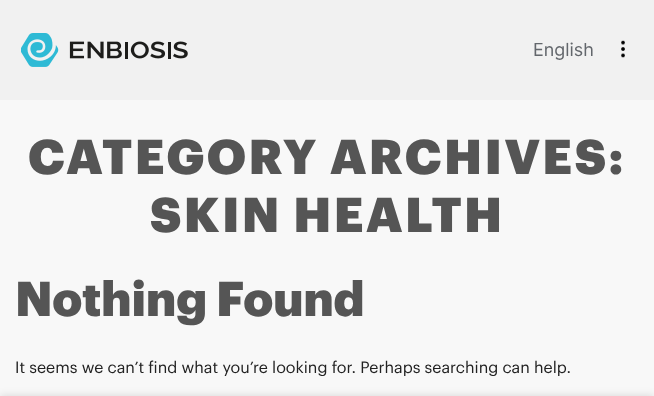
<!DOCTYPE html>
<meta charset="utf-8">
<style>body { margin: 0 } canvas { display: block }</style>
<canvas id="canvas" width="654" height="396"></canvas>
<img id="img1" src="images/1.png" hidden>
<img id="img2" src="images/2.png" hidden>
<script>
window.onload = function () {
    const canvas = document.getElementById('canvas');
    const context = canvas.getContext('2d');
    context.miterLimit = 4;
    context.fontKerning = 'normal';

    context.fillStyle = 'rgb(248, 248, 248)';
    context.fillRect(0, 0, 654, 396);
    context.fillStyle = 'rgb(241, 241, 241)';
    context.fillRect(0, 0, 654, 100);
    context.drawImage(document.getElementById('img1'), 21, 33, 167, 34);
    context.drawImage(document.getElementById('img2'), 621, 40, 4, 18);
    context.fillStyle = 'rgba(0, 0, 0, 0.14)';
    context.filter = 'blur(4.5px)';
    context.beginPath();
    context.rect(0, 396, 654, 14);
    context.fill();
    context.filter = 'none';
    context.font = '18px Inter';
    context.fillStyle = 'rgb(99, 103, 108)';
    context.fillText('English', 533, 56);
    context.letterSpacing = '2.4px';
    context.font = '900 48px Graphik';
    context.fillStyle = 'rgb(85, 85, 85)';
    context.fillText('CATEGORY ARCHIVES:', 28, 174);
    context.fillText('SKIN HEALTH', 150, 232);
    context.letterSpacing = '0px';
    context.fillText('Nothing Found', 15, 316);
    context.font = '16px Graphik';
    context.fillStyle = 'rgb(34, 34, 34)';
    context.fillText('It seems we can’t find what you’re looking for. Perhaps searching can help.', 15, 373);
};
</script>
